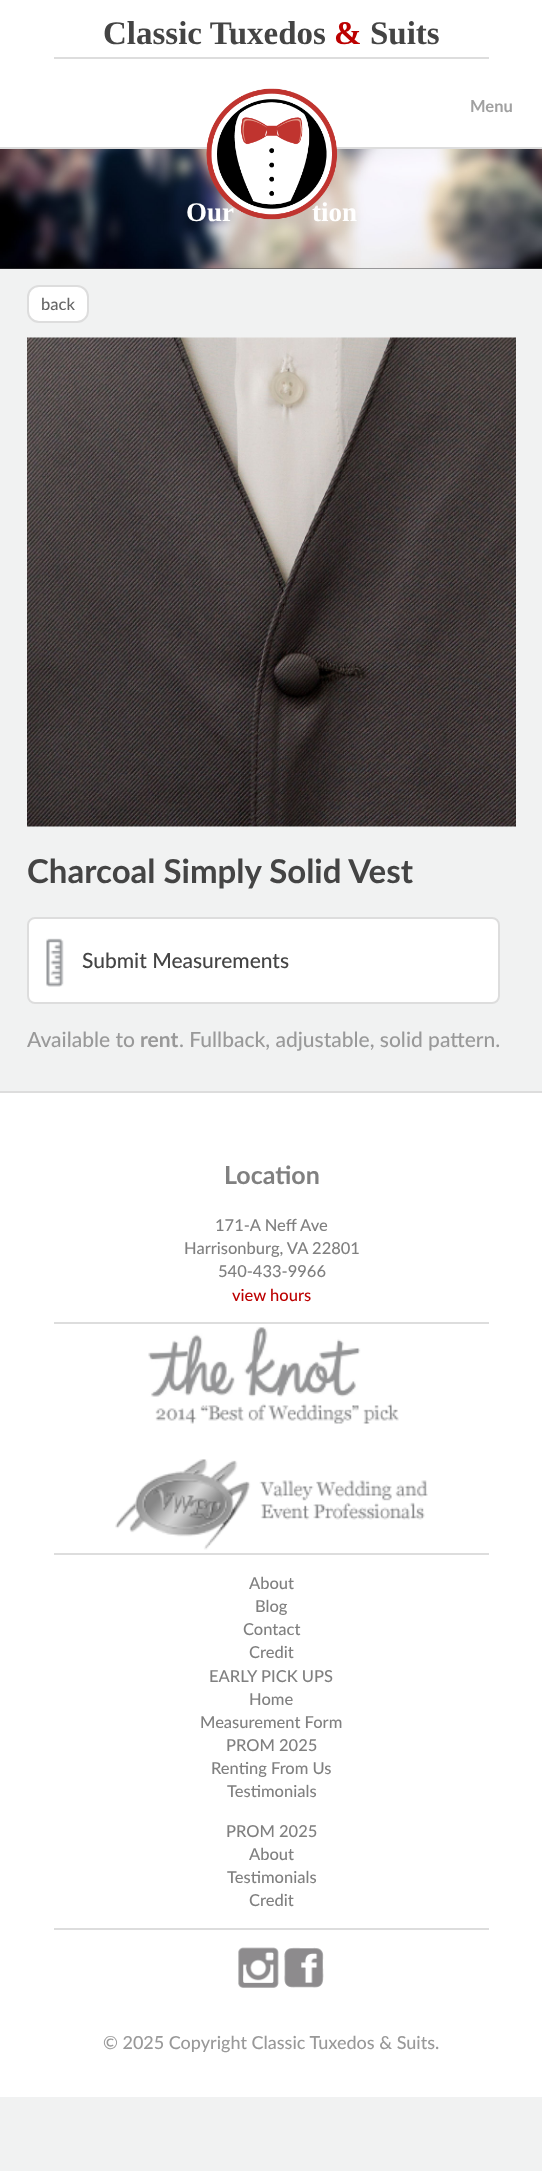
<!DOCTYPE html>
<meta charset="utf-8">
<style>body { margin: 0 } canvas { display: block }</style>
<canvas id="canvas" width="542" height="2171"></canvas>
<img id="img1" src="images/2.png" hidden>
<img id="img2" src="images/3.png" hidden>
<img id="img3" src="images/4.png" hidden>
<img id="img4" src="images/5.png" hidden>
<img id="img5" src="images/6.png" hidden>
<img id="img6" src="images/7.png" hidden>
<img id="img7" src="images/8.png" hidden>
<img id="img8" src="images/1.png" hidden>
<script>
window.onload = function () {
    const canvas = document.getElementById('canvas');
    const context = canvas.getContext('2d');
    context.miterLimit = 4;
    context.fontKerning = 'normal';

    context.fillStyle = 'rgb(241, 242, 242)';
    context.fillRect(0, 0, 542, 2171);
    context.fillStyle = 'rgb(255, 255, 255)';
    context.fillRect(0, 0, 542, 147);
    context.fillStyle = 'rgb(221, 221, 221)';
    context.fillRect(0, 147, 542, 2);
    context.fillRect(54, 57, 435, 2);
    context.fillStyle = 'rgb(65, 64, 66)';
    context.fillRect(0, 268, 542, 1);
    context.drawImage(document.getElementById('img1'), 0, 149, 542, 120);
    context.fillStyle = 'rgb(255, 255, 255)';
    context.beginPath();
    context.roundRect(28, 286, 60, 36, 11);
    context.fill();
    context.strokeStyle = 'rgb(221, 221, 221)';
    context.lineWidth = 2;
    context.stroke();
    context.drawImage(document.getElementById('img2'), 27, 337, 489, 490);
    context.beginPath();
    context.roundRect(28, 918, 471, 85, 7);
    context.fill();
    context.stroke();
    context.drawImage(document.getElementById('img3'), 46, 938, 18, 49);
    context.fillRect(0, 1093, 542, 1004);
    context.fillStyle = 'rgb(221, 221, 221)';
    context.fillRect(0, 1091, 542, 2);
    context.fillRect(54, 1322, 435, 2);
    context.drawImage(document.getElementById('img4'), 148, 1327, 251, 97);
    context.drawImage(document.getElementById('img5'), 115, 1459, 313, 91);
    context.fillRect(54, 1553, 435, 2);
    context.fillRect(54, 1928, 435, 2);
    context.drawImage(document.getElementById('img6'), 238, 1947, 41, 41);
    context.drawImage(document.getElementById('img7'), 284, 1947, 40, 41);
    context.font = 'bold 33px Liberation Serif';
    context.fillStyle = 'rgb(68, 68, 68)';
    context.fillText('Classic Tuxedos', 103, 44);
    context.fillStyle = 'rgb(188, 0, 0)';
    context.fillText('&', 334, 44);
    context.fillStyle = 'rgb(68, 68, 68)';
    context.fillText('Suits', 370, 44);
    context.font = 'bold 16.5px Lato';
    context.fillStyle = 'rgb(160, 160, 160)';
    context.fillText('Menu', 470, 112);
    context.font = 'bold 27px Liberation Serif';
    context.fillStyle = 'rgb(255, 255, 255)';
    context.fillText('Our', 186, 221);
    context.fillText('tion', 312, 221);
    context.drawImage(document.getElementById('img8'), 206, 88, 132, 132);
    context.font = '500 16.5px Lato';
    context.fillStyle = 'rgb(102, 102, 102)';
    context.fillText('back', 41, 310);
    context.font = 'bold 33px Lato';
    context.fillStyle = 'rgb(68, 68, 68)';
    context.fillText('Charcoal Simply Solid Vest', 27, 883);
    context.font = '500 21px Lato';
    context.fillText('Submit Measurements', 82, 968);
    context.fillStyle = 'rgb(153, 153, 153)';
    context.fillText('Available to', 27, 1047);
    context.font = 'bold 21px Lato';
    context.fillText('rent', 140, 1047);
    context.font = '500 21px Lato';
    context.fillText('. Fullback, adjustable, solid pattern.', 179, 1047);
    context.font = 'bold 25px Lato';
    context.fillStyle = 'rgb(128, 128, 128)';
    context.fillText('Location', 224, 1184);
    context.font = '500 16.5px Lato';
    context.fillText('171-A Neff Ave', 215, 1231);
    context.fillText('Harrisonburg, VA 22801', 184, 1254);
    context.fillText('540-433-9966', 218, 1277);
    context.fillStyle = 'rgb(188, 0, 0)';
    context.fillText('view hours', 232, 1301);
    context.fillStyle = 'rgb(128, 128, 128)';
    context.fillText('About', 249, 1589);
    context.fillText('Blog', 255, 1612);
    context.fillText('Contact', 243, 1635);
    context.fillText('Credit', 249, 1658);
    context.fillText('EARLY PICK UPS', 209, 1682);
    context.fillText('Home', 249, 1705);
    context.fillText('Measurement Form', 200, 1728);
    context.fillText('PROM 2025', 226, 1751);
    context.fillText('Renting From Us', 211, 1774);
    context.fillText('Testimonials', 227, 1797);
    context.fillText('PROM 2025', 226, 1837);
    context.fillText('About', 249, 1860);
    context.fillText('Testimonials', 227, 1883);
    context.fillText('Credit', 249, 1906);
    context.font = '500 18px Lato';
    context.fillStyle = 'rgb(153, 153, 153)';
    context.fillText('© 2025 Copyright Classic Tuxedos & Suits.', 103, 2049);
};
</script>
